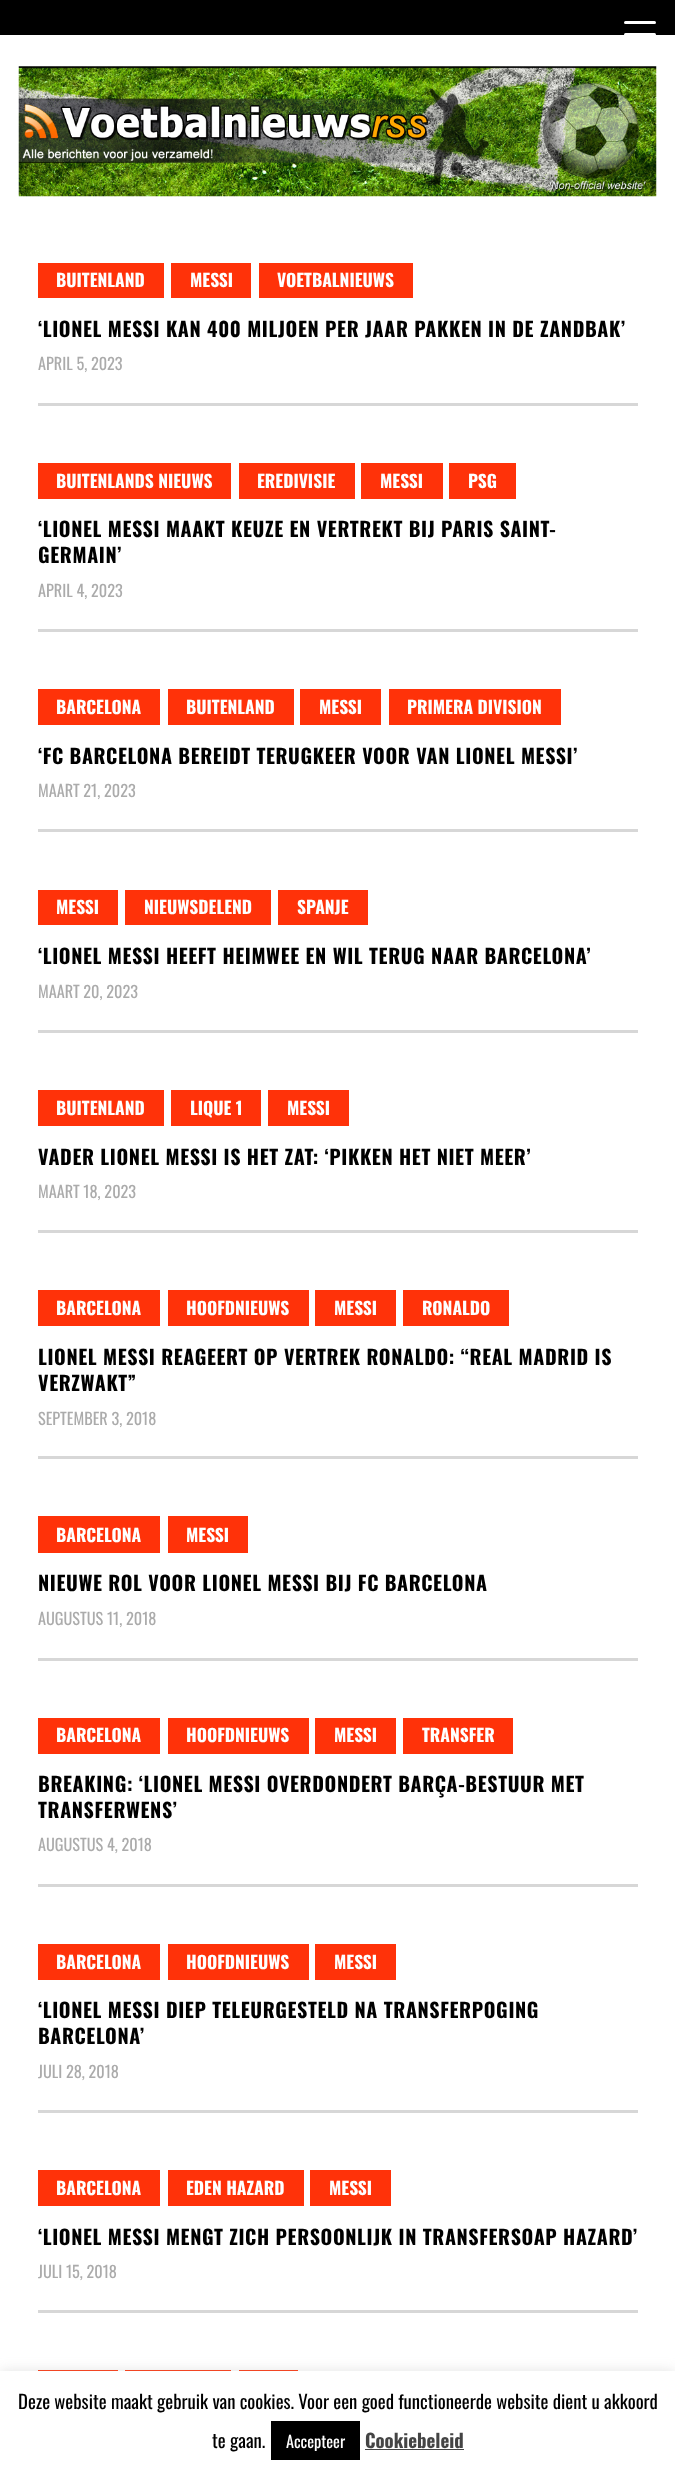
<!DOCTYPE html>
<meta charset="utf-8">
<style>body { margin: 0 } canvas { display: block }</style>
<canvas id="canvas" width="675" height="2474"></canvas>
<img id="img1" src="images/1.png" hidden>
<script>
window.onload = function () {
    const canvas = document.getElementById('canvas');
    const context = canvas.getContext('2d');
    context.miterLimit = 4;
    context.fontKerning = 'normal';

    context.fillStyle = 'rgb(255, 255, 255)';
    context.fillRect(0, 0, 675, 2474);
    context.fillStyle = 'rgb(0, 0, 0)';
    context.fillRect(0, 0, 675, 35);
    context.fillStyle = 'rgb(255, 255, 255)';
    context.beginPath();
    context.roundRect(624, 33, 32, 3, 1.5);
    context.fill();
    context.beginPath();
    context.roundRect(624, 21, 32, 3, 1.5);
    context.fill();
    context.drawImage(document.getElementById('img1'), 18, 66, 639, 131);
    context.fillStyle = 'rgb(215, 215, 215)';
    context.fillRect(38, 403, 600, 3);
    context.fillStyle = 'rgb(255, 50, 9)';
    context.fillRect(38, 263, 126, 35);
    context.fillRect(171, 263, 80, 35);
    context.fillRect(259, 263, 154, 35);
    context.fillStyle = 'rgb(215, 215, 215)';
    context.fillRect(38, 629, 600, 3);
    context.fillStyle = 'rgb(255, 50, 9)';
    context.fillRect(38, 463, 193, 36);
    context.fillRect(239, 463, 116, 36);
    context.fillRect(361, 463, 82, 36);
    context.fillRect(449, 463, 67, 36);
    context.fillStyle = 'rgb(215, 215, 215)';
    context.fillRect(38, 829, 600, 3);
    context.fillStyle = 'rgb(255, 50, 9)';
    context.fillRect(38, 689, 122, 36);
    context.fillRect(168, 689, 126, 36);
    context.fillRect(300, 689, 81, 36);
    context.fillRect(389, 689, 172, 36);
    context.fillStyle = 'rgb(215, 215, 215)';
    context.fillRect(38, 1030, 600, 3);
    context.fillStyle = 'rgb(255, 50, 9)';
    context.fillRect(38, 890, 80, 35);
    context.fillRect(125, 890, 146, 35);
    context.fillRect(278, 890, 90, 35);
    context.fillStyle = 'rgb(215, 215, 215)';
    context.fillRect(38, 1230, 600, 3);
    context.fillStyle = 'rgb(255, 50, 9)';
    context.fillRect(38, 1090, 126, 36);
    context.fillRect(171, 1090, 90, 36);
    context.fillRect(268, 1090, 81, 36);
    context.fillStyle = 'rgb(215, 215, 215)';
    context.fillRect(38, 1456, 600, 3);
    context.fillStyle = 'rgb(255, 50, 9)';
    context.fillRect(38, 1290, 122, 36);
    context.fillRect(168, 1290, 141, 36);
    context.fillRect(315, 1290, 81, 36);
    context.fillRect(403, 1290, 106, 36);
    context.fillStyle = 'rgb(215, 215, 215)';
    context.fillRect(38, 1658, 600, 3);
    context.fillStyle = 'rgb(255, 50, 9)';
    context.fillRect(38, 1516, 122, 37);
    context.fillRect(168, 1516, 80, 37);
    context.fillStyle = 'rgb(215, 215, 215)';
    context.fillRect(38, 1884, 600, 3);
    context.fillStyle = 'rgb(255, 50, 9)';
    context.fillRect(38, 1718, 122, 36);
    context.fillRect(168, 1718, 141, 36);
    context.fillRect(315, 1718, 81, 36);
    context.fillRect(403, 1718, 110, 36);
    context.fillStyle = 'rgb(215, 215, 215)';
    context.fillRect(38, 2110, 600, 3);
    context.fillStyle = 'rgb(255, 50, 9)';
    context.fillRect(38, 1944, 122, 36);
    context.fillRect(168, 1944, 141, 36);
    context.fillRect(315, 1944, 81, 36);
    context.fillStyle = 'rgb(215, 215, 215)';
    context.fillRect(38, 2310, 600, 3);
    context.fillStyle = 'rgb(255, 50, 9)';
    context.fillRect(38, 2170, 122, 36);
    context.fillRect(168, 2170, 136, 36);
    context.fillRect(310, 2170, 81, 36);
    context.fillRect(38, 2370, 80, 1);
    context.fillRect(125, 2370, 106, 1);
    context.fillRect(239, 2370, 59, 1);
    context.fillStyle = 'rgba(172, 171, 171, 0.3)';
    context.filter = 'blur(6px)';
    context.beginPath();
    context.rect(0, 2370, 675, 104);
    context.fill();
    context.filter = 'none';
    context.fillStyle = 'rgb(255, 255, 255)';
    context.fillRect(0, 2371, 675, 103);
    context.fillStyle = 'rgb(0, 0, 0)';
    context.fillRect(271, 2421, 89, 39);
    context.fillStyle = 'rgb(68, 68, 68)';
    context.fillRect(365, 2449, 99, 1);
    context.font = 'bold 17.5px Oswald';
    context.fillStyle = 'rgb(255, 255, 255)';
    context.fillText('BUITENLAND', 56, 287);
    context.fillText('MESSI', 190, 287);
    context.fillText('VOETBALNIEUWS', 277, 287);
    context.letterSpacing = '0.62px';
    context.font = 'bold 20px Oswald';
    context.fillStyle = 'rgb(0, 0, 0)';
    context.fillText('‘LIONEL MESSI KAN 400 MILJOEN PER JAAR PAKKEN IN DE ZANDBAK’', 38, 337);
    context.letterSpacing = '0px';
    context.font = '16.25px Oswald';
    context.fillStyle = 'rgb(171, 171, 171)';
    context.fillText('APRIL 5, 2023', 38, 370);
    context.font = 'bold 17.5px Oswald';
    context.fillStyle = 'rgb(255, 255, 255)';
    context.fillText('BUITENLANDS NIEUWS', 56, 488);
    context.fillText('EREDIVISIE', 257, 488);
    context.fillText('MESSI', 380, 488);
    context.fillText('PSG', 468, 488);
    context.letterSpacing = '0.62px';
    context.font = 'bold 20px Oswald';
    context.fillStyle = 'rgb(0, 0, 0)';
    context.fillText('‘LIONEL MESSI MAAKT KEUZE EN VERTREKT BIJ PARIS SAINT-', 38, 537);
    context.fillText('GERMAIN’', 38, 563);
    context.letterSpacing = '0px';
    context.font = '16.25px Oswald';
    context.fillStyle = 'rgb(171, 171, 171)';
    context.fillText('APRIL 4, 2023', 38, 597);
    context.font = 'bold 17.5px Oswald';
    context.fillStyle = 'rgb(255, 255, 255)';
    context.fillText('BARCELONA', 56, 714);
    context.fillText('BUITENLAND', 186, 714);
    context.fillText('MESSI', 319, 714);
    context.fillText('PRIMERA DIVISION', 407, 714);
    context.letterSpacing = '0.62px';
    context.font = 'bold 20px Oswald';
    context.fillStyle = 'rgb(0, 0, 0)';
    context.fillText('‘FC BARCELONA BEREIDT TERUGKEER VOOR VAN LIONEL MESSI’', 38, 764);
    context.letterSpacing = '0px';
    context.font = '16.25px Oswald';
    context.fillStyle = 'rgb(171, 171, 171)';
    context.fillText('MAART 21, 2023', 38, 797);
    context.font = 'bold 17.5px Oswald';
    context.fillStyle = 'rgb(255, 255, 255)';
    context.fillText('MESSI', 56, 914);
    context.fillText('NIEUWSDELEND', 144, 914);
    context.fillText('SPANJE', 297, 914);
    context.letterSpacing = '0.62px';
    context.font = 'bold 20px Oswald';
    context.fillStyle = 'rgb(0, 0, 0)';
    context.fillText('‘LIONEL MESSI HEEFT HEIMWEE EN WIL TERUG NAAR BARCELONA’', 38, 964);
    context.letterSpacing = '0px';
    context.font = '16.25px Oswald';
    context.fillStyle = 'rgb(171, 171, 171)';
    context.fillText('MAART 20, 2023', 38, 998);
    context.font = 'bold 17.5px Oswald';
    context.fillStyle = 'rgb(255, 255, 255)';
    context.fillText('BUITENLAND', 56, 1115);
    context.fillText('LIQUE 1', 190, 1115);
    context.fillText('MESSI', 287, 1115);
    context.letterSpacing = '0.62px';
    context.font = 'bold 20px Oswald';
    context.fillStyle = 'rgb(0, 0, 0)';
    context.fillText('VADER LIONEL MESSI IS HET ZAT: ‘PIKKEN HET NIET MEER’', 38, 1165);
    context.letterSpacing = '0px';
    context.font = '16.25px Oswald';
    context.fillStyle = 'rgb(171, 171, 171)';
    context.fillText('MAART 18, 2023', 38, 1198);
    context.font = 'bold 17.5px Oswald';
    context.fillStyle = 'rgb(255, 255, 255)';
    context.fillText('BARCELONA', 56, 1315);
    context.fillText('HOOFDNIEUWS', 186, 1315);
    context.fillText('MESSI', 334, 1315);
    context.fillText('RONALDO', 422, 1315);
    context.letterSpacing = '0.62px';
    context.font = 'bold 20px Oswald';
    context.fillStyle = 'rgb(0, 0, 0)';
    context.fillText('LIONEL MESSI REAGEERT OP VERTREK RONALDO: “REAL MADRID IS', 38, 1365);
    context.fillText('VERZWAKT”', 38, 1391);
    context.letterSpacing = '0px';
    context.font = '16.25px Oswald';
    context.fillStyle = 'rgb(171, 171, 171)';
    context.fillText('SEPTEMBER 3, 2018', 38, 1425);
    context.font = 'bold 17.5px Oswald';
    context.fillStyle = 'rgb(255, 255, 255)';
    context.fillText('BARCELONA', 56, 1542);
    context.fillText('MESSI', 186, 1542);
    context.letterSpacing = '0.62px';
    context.font = 'bold 20px Oswald';
    context.fillStyle = 'rgb(0, 0, 0)';
    context.fillText('NIEUWE ROL VOOR LIONEL MESSI BIJ FC BARCELONA', 38, 1591);
    context.letterSpacing = '0px';
    context.font = '16.25px Oswald';
    context.fillStyle = 'rgb(171, 171, 171)';
    context.fillText('AUGUSTUS 11, 2018', 38, 1625);
    context.font = 'bold 17.5px Oswald';
    context.fillStyle = 'rgb(255, 255, 255)';
    context.fillText('BARCELONA', 56, 1742);
    context.fillText('HOOFDNIEUWS', 186, 1742);
    context.fillText('MESSI', 334, 1742);
    context.fillText('TRANSFER', 422, 1742);
    context.letterSpacing = '0.62px';
    context.font = 'bold 20px Oswald';
    context.fillStyle = 'rgb(0, 0, 0)';
    context.fillText('BREAKING: ‘LIONEL MESSI OVERDONDERT BARÇA-BESTUUR MET', 38, 1792);
    context.fillText('TRANSFERWENS’', 38, 1818);
    context.letterSpacing = '0px';
    context.font = '16.25px Oswald';
    context.fillStyle = 'rgb(171, 171, 171)';
    context.fillText('AUGUSTUS 4, 2018', 38, 1851);
    context.font = 'bold 17.5px Oswald';
    context.fillStyle = 'rgb(255, 255, 255)';
    context.fillText('BARCELONA', 56, 1969);
    context.fillText('HOOFDNIEUWS', 186, 1969);
    context.fillText('MESSI', 334, 1969);
    context.letterSpacing = '0.62px';
    context.font = 'bold 20px Oswald';
    context.fillStyle = 'rgb(0, 0, 0)';
    context.fillText('‘LIONEL MESSI DIEP TELEURGESTELD NA TRANSFERPOGING', 38, 2018);
    context.fillText('BARCELONA’', 38, 2044);
    context.letterSpacing = '0px';
    context.font = '16.25px Oswald';
    context.fillStyle = 'rgb(171, 171, 171)';
    context.fillText('JULI 28, 2018', 38, 2078);
    context.font = 'bold 17.5px Oswald';
    context.fillStyle = 'rgb(255, 255, 255)';
    context.fillText('BARCELONA', 56, 2195);
    context.fillText('EDEN HAZARD', 186, 2195);
    context.fillText('MESSI', 329, 2195);
    context.letterSpacing = '0.62px';
    context.font = 'bold 20px Oswald';
    context.fillStyle = 'rgb(0, 0, 0)';
    context.fillText('‘LIONEL MESSI MENGT ZICH PERSOONLIJK IN TRANSFERSOAP HAZARD’', 38, 2245);
    context.letterSpacing = '0px';
    context.font = '16.25px Oswald';
    context.fillStyle = 'rgb(171, 171, 171)';
    context.fillText('JULI 15, 2018', 38, 2278);
    context.font = '18.75px Oswald';
    context.fillStyle = 'rgb(0, 0, 0)';
    context.fillText('Deze website maakt gebruik van cookies. Voor een goed functioneerde website dient u akkoord', 18, 2409);
    context.fillText('te gaan.', 212, 2448);
    context.font = '16.25px Oswald';
    context.fillStyle = 'rgb(255, 255, 255)';
    context.fillText('Accepteer', 286, 2448);
    context.font = 'bold 18.75px Oswald';
    context.fillStyle = 'rgb(68, 68, 68)';
    context.fillText('Cookiebeleid', 365, 2448);
};
</script>
